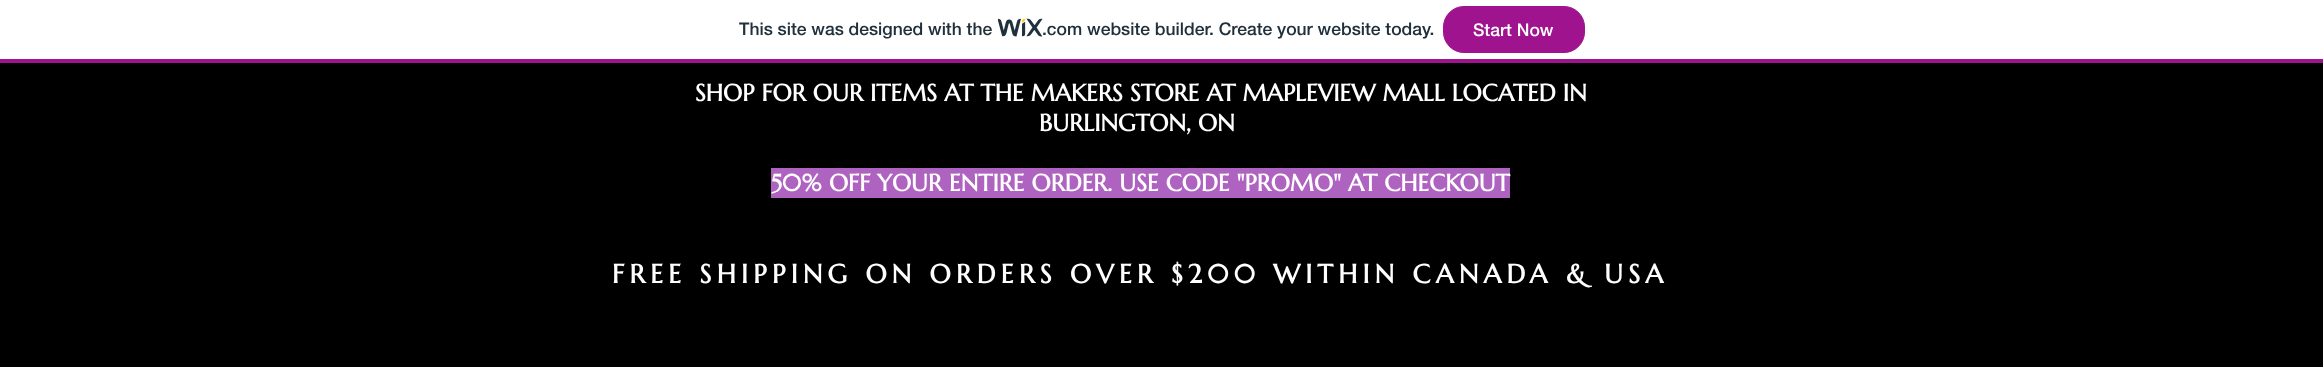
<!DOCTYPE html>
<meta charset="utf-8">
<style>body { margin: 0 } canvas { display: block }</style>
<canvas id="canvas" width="2323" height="367"></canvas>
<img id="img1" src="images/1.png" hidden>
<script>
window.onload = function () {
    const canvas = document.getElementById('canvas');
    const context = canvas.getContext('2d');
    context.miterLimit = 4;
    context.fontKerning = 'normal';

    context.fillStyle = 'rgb(255, 255, 255)';
    context.fillRect(0, 0, 2323, 367);
    context.fillStyle = 'rgb(160, 19, 142)';
    context.fillRect(0, 59, 2323, 4);
    context.drawImage(document.getElementById('img1'), 998, 18, 45, 19);
    context.beginPath();
    context.roundRect(1443.5, 6.5, 141, 46, 20.5);
    context.fill();
    context.strokeStyle = 'rgb(160, 19, 142)';
    context.stroke();
    context.fillStyle = 'rgb(0, 0, 0)';
    context.fillRect(0, 63, 2323, 304);
    context.fillStyle = 'rgb(175, 99, 192)';
    context.fillRect(771, 168, 739, 30);
    context.font = '500 17.5px "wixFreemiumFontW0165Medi"';
    context.fillStyle = 'rgb(32, 48, 60)';
    context.fillText('This site was designed with the', 739, 35);
    context.fillText('.com website builder. Create your website today.', 1042, 35);
    context.fillStyle = 'rgb(255, 255, 255)';
    context.fillText('Start Now', 1473, 36);
    context.font = 'bold 23.75px Marcellus';
    context.fillText('SHOP FOR OUR ITEMS AT THE MAKERS STORE AT MAPLEVIEW MALL LOCATED IN', 695, 101);
    context.fillText('BURLINGTON, ON', 1039, 131);
    context.fillText('50% OFF YOUR ENTIRE ORDER. USE CODE "PROMO" AT CHECKOUT', 771, 191);
    context.letterSpacing = '5.25px';
    context.font = 'bold 26.25px Marcellus';
    context.fillText('FREE SHIPPING ON ORDERS OVER $200 WITHIN CANADA & USA', 612, 283);
};
</script>
